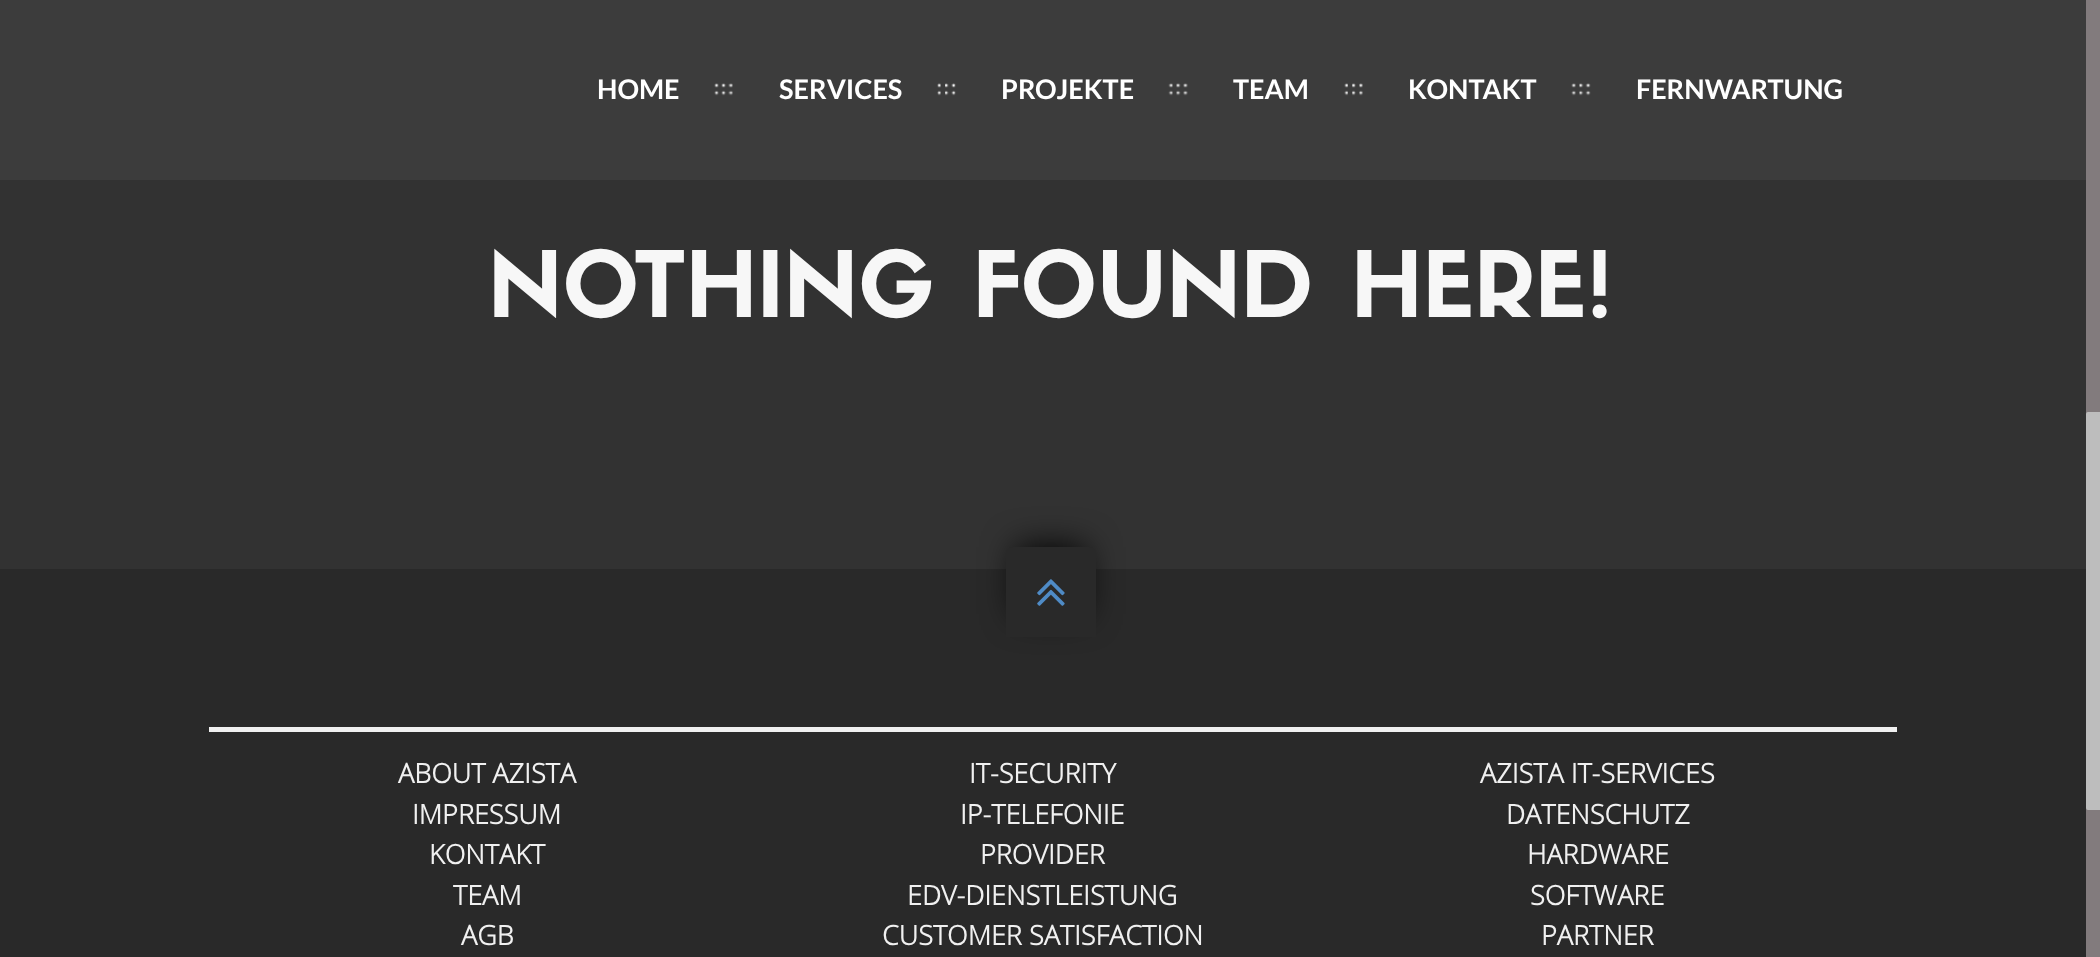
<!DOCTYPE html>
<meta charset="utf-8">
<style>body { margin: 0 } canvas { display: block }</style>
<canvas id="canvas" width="2100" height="957"></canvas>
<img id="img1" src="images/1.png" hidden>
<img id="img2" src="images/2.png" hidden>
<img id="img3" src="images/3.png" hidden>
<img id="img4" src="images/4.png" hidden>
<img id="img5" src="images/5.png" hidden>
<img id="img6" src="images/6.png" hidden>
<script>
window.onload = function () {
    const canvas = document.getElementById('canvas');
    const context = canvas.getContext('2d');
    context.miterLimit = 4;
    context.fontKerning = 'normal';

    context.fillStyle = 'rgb(50, 50, 50)';
    context.fillRect(0, 0, 2100, 957);
    context.fillStyle = 'rgb(60, 60, 60)';
    context.fillRect(0, 0, 2086, 180);
    context.drawImage(document.getElementById('img1'), 714, 83, 19, 13);
    context.drawImage(document.getElementById('img2'), 937, 83, 19, 13);
    context.drawImage(document.getElementById('img3'), 1168, 83, 20, 13);
    context.drawImage(document.getElementById('img4'), 1344, 83, 19, 13);
    context.drawImage(document.getElementById('img5'), 1571, 83, 20, 13);
    context.fillStyle = 'rgb(130, 123, 125)';
    context.fillRect(2086, 0, 14, 957);
    context.fillStyle = 'rgb(189, 189, 189)';
    context.beginPath();
    context.roundRect(2086, 412, 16, 398, 2);
    context.fill();
    context.fillStyle = 'rgb(41, 41, 41)';
    context.fillRect(0, 569, 2086, 388);
    context.fillStyle = 'rgb(0, 0, 0)';
    context.filter = 'blur(17px)';
    context.beginPath();
    context.rect(1017, 547, 68, 67);
    context.fill();
    context.filter = 'none';
    context.fillStyle = 'rgb(41, 41, 41)';
    context.beginPath();
    context.roundRect(1006, 547, 90, 90, [7, 7, 0, 0]);
    context.fill();
    context.drawImage(document.getElementById('img6'), 1037, 579, 28, 27);
    context.fillStyle = 'rgb(240, 240, 240)';
    context.fillRect(209, 727, 1688, 5);
    context.font = 'bold 27px Lato';
    context.fillStyle = 'rgb(255, 255, 255)';
    context.fillText('HOME', 597, 99);
    context.fillText('SERVICES', 779, 99);
    context.fillText('PROJEKTE', 1001, 99);
    context.fillText('TEAM', 1233, 99);
    context.fillText('KONTAKT', 1408, 99);
    context.fillText('FERNWARTUNG', 1636, 99);
    context.font = 'bold 90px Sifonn';
    context.fillStyle = 'rgb(247, 247, 247)';
    context.fillText('NOTHING FOUND HERE!', 488, 317);
    context.font = 'bold 27px Open Sans';
    context.fillStyle = 'rgb(240, 240, 240)';
    context.fillText('ABOUT AZISTA', 398, 783);
    context.fillText('IMPRESSUM', 412, 824);
    context.fillText('KONTAKT', 429, 864);
    context.fillText('TEAM', 453, 905);
    context.fillText('AGB', 461, 945);
    context.fillText('IT-SECURITY', 969, 783);
    context.fillText('IP-TELEFONIE', 960, 824);
    context.fillText('PROVIDER', 980, 864);
    context.fillText('EDV-DIENSTLEISTUNG', 907, 905);
    context.fillText('CUSTOMER SATISFACTION', 882, 945);
    context.fillText('AZISTA IT-SERVICES', 1480, 783);
    context.fillText('DATENSCHUTZ', 1506, 824);
    context.fillText('HARDWARE', 1527, 864);
    context.fillText('SOFTWARE', 1530, 905);
    context.fillText('PARTNER', 1541, 945);
};
</script>
